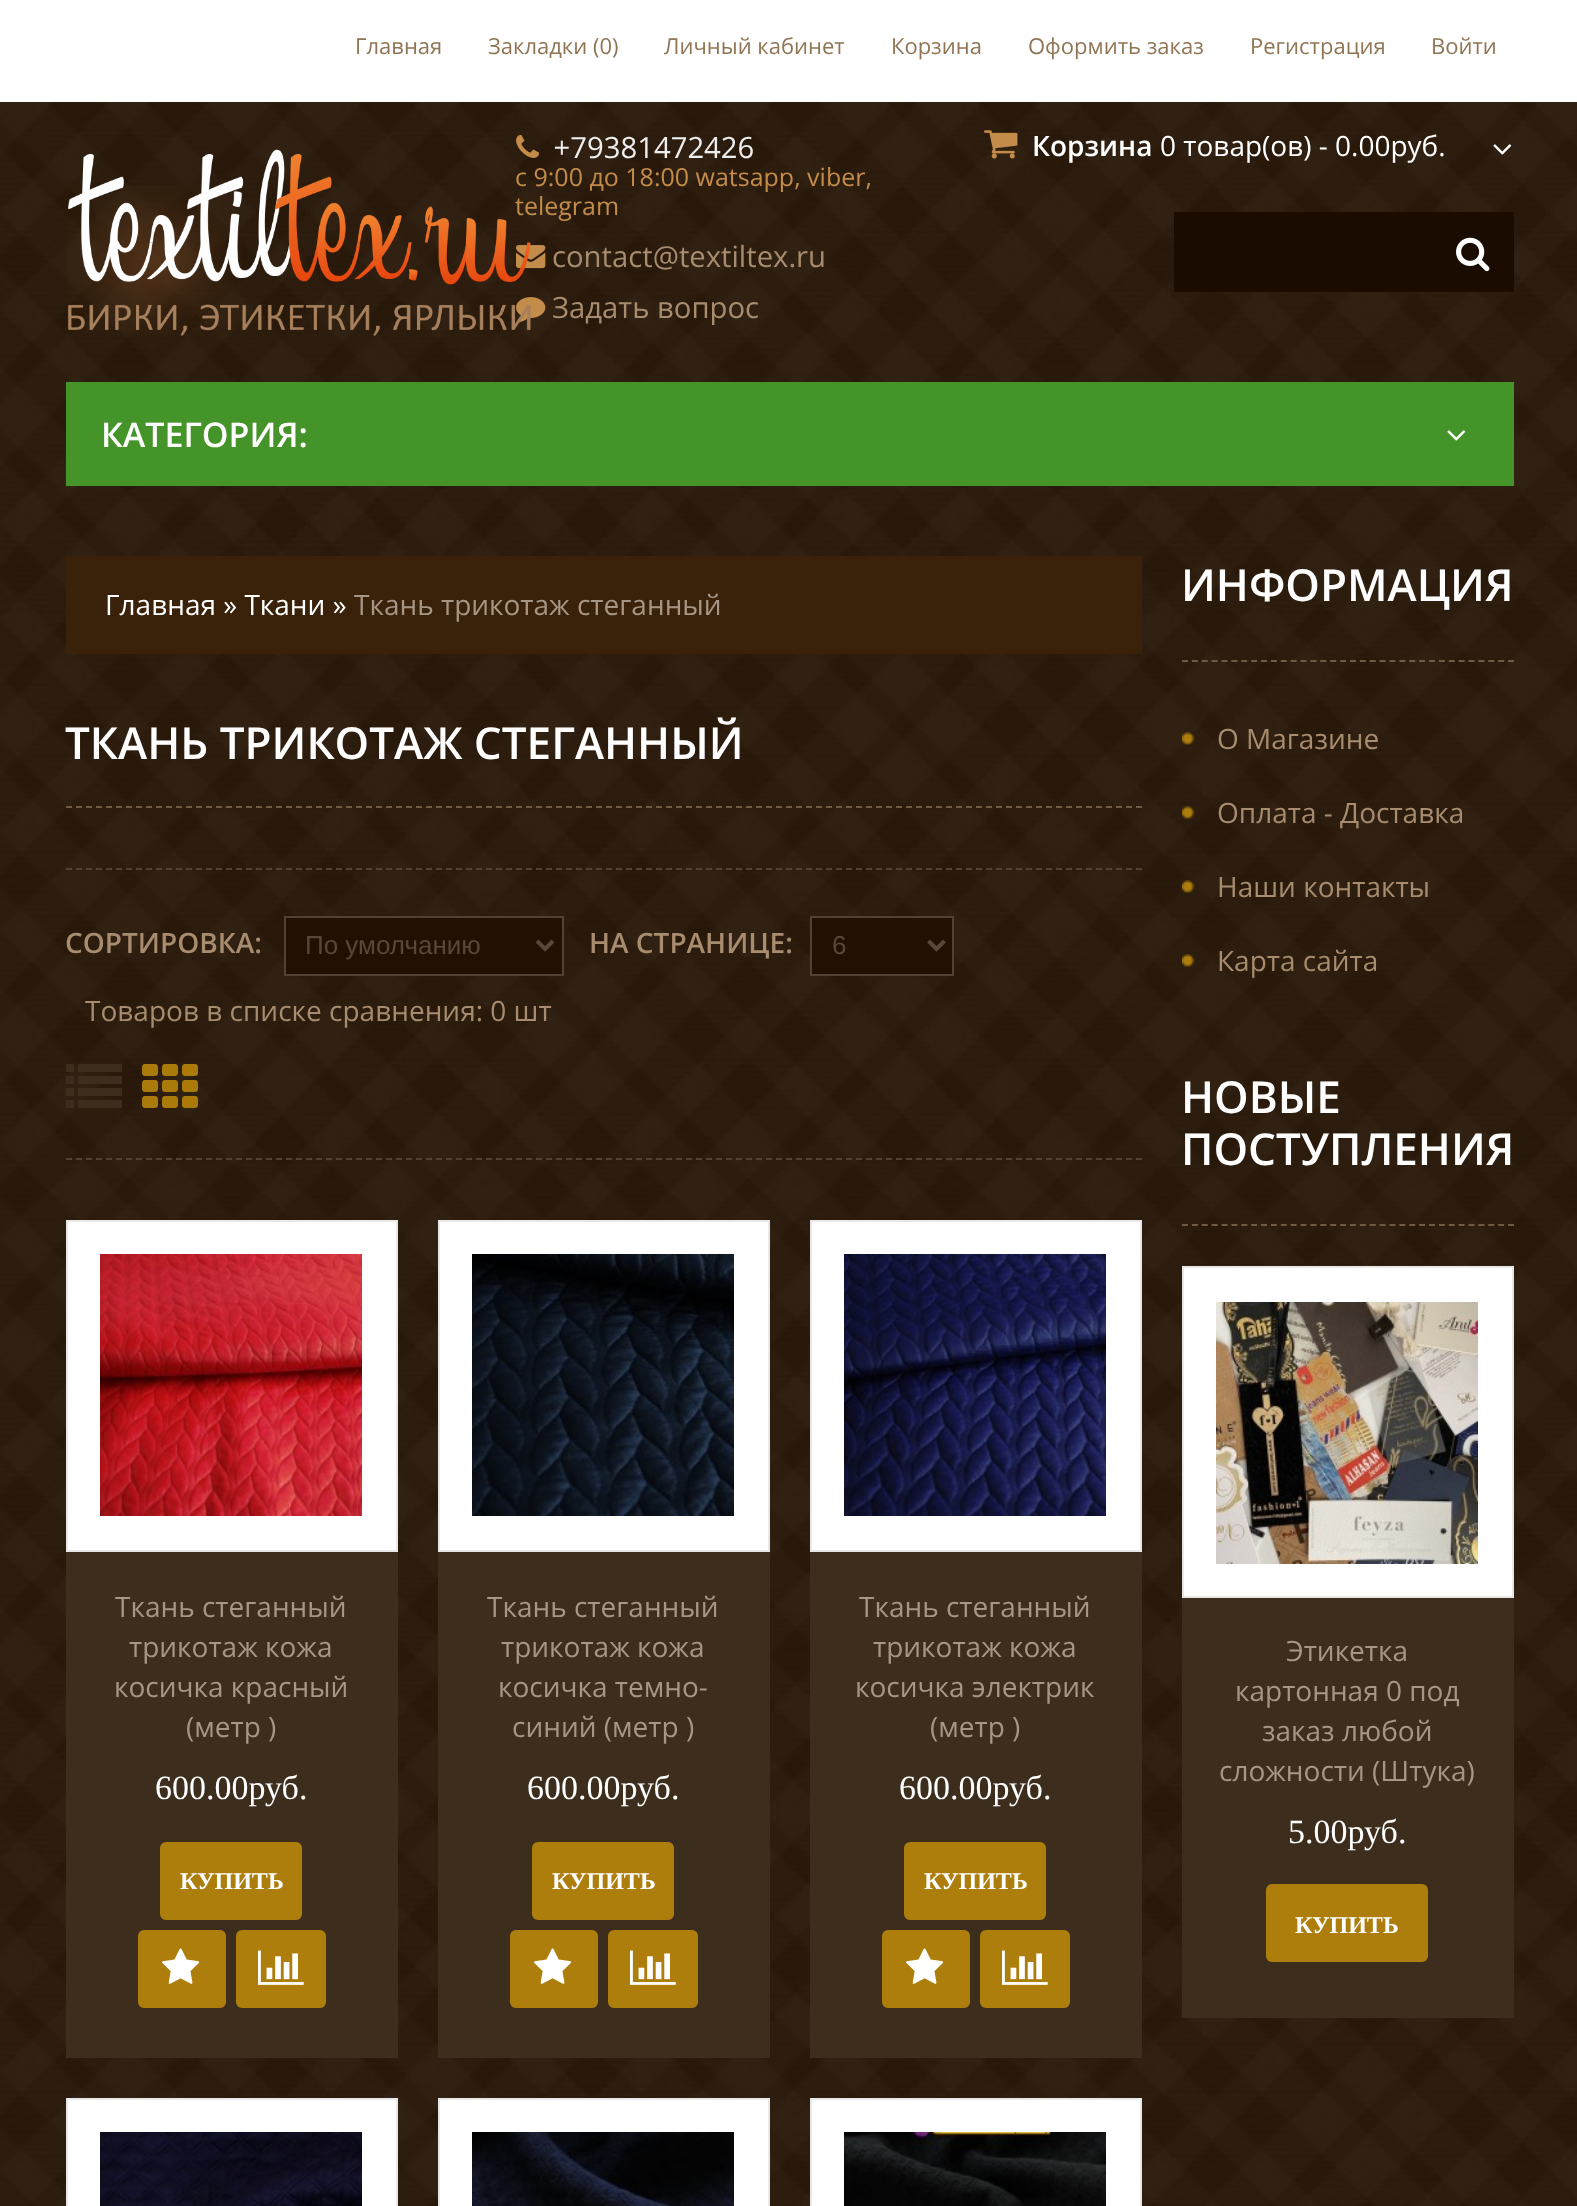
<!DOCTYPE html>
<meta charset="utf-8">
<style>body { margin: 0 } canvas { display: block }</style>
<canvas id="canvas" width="1577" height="2206"></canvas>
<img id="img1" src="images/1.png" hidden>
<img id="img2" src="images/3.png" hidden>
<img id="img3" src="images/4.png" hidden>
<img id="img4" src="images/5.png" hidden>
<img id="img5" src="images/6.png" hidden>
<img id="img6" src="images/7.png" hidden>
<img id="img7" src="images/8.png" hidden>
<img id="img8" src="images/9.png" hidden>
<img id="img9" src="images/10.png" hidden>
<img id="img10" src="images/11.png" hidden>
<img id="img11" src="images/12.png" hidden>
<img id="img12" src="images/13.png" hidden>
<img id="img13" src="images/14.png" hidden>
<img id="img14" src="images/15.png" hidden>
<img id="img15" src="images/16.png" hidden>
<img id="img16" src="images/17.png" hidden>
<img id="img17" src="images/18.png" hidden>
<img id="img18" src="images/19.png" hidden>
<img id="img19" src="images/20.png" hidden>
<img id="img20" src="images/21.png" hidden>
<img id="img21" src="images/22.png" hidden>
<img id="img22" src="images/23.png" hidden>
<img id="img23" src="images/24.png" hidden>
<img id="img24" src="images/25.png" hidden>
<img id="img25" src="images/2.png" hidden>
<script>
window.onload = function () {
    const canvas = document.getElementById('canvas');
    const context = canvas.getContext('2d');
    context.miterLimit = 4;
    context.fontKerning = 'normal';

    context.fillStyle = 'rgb(255, 255, 255)';
    context.fillRect(0, 0, 1577, 2206);
    context.drawImage(document.getElementById('img1'), 0, 102, 1577, 2104);
    context.drawImage(document.getElementById('img2'), 67, 185, 174, 150);
    context.drawImage(document.getElementById('img3'), 516, 135, 23, 23);
    context.drawImage(document.getElementById('img4'), 516, 245, 30, 24);
    context.drawImage(document.getElementById('img5'), 516, 297, 30, 26);
    context.drawImage(document.getElementById('img6'), 984, 130, 34, 29);
    context.drawImage(document.getElementById('img7'), 1493, 144, 19, 11);
    context.fillStyle = 'rgb(27, 12, 0)';
    context.fillRect(1174, 212, 340, 80);
    context.drawImage(document.getElementById('img8'), 1456, 237, 34, 35);
    context.fillStyle = 'rgb(69, 148, 41)';
    context.fillRect(66, 382, 1448, 104);
    context.drawImage(document.getElementById('img9'), 1447, 430, 19, 11);
    context.fillStyle = 'rgb(58, 33, 10)';
    context.fillRect(66, 556, 1076, 98);
    context.beginPath();
    context.moveTo(66, 807);
    context.lineTo(1142, 807);
    context.strokeStyle = 'rgb(111, 90, 68)';
    context.lineWidth = 2;
    context.setLineDash([6, 4]);
    context.stroke();
    context.beginPath();
    context.moveTo(66, 869);
    context.lineTo(1142, 869);
    context.strokeStyle = 'rgb(81, 66, 50)';
    context.stroke();
    context.beginPath();
    context.moveTo(66, 1159);
    context.lineTo(1142, 1159);
    context.stroke();
    context.fillStyle = 'rgb(32, 17, 2)';
    context.beginPath();
    context.rect(285, 917, 278, 58);
    context.fill();
    context.setLineDash([]);
    context.stroke();
    context.beginPath();
    context.moveTo(537, 941);
    context.lineTo(545, 949);
    context.lineTo(553, 941);
    context.strokeStyle = 'rgb(87, 72, 57)';
    context.lineWidth = 4;
    context.stroke();
    context.beginPath();
    context.rect(811, 917, 142, 58);
    context.fill();
    context.strokeStyle = 'rgb(81, 66, 50)';
    context.lineWidth = 2;
    context.stroke();
    context.beginPath();
    context.moveTo(928.5, 941);
    context.lineTo(936.5, 949);
    context.lineTo(944.5, 941);
    context.strokeStyle = 'rgb(87, 72, 57)';
    context.lineWidth = 4;
    context.stroke();
    context.drawImage(document.getElementById('img10'), 66, 1064, 56, 44);
    context.drawImage(document.getElementById('img11'), 142, 1064, 56, 44);
    context.fillStyle = 'rgb(60, 45, 29)';
    context.fillRect(66, 1552, 332, 506);
    context.fillStyle = 'rgb(255, 255, 255)';
    context.beginPath();
    context.rect(67, 1221, 330, 330);
    context.fill();
    context.strokeStyle = 'rgb(232, 232, 232)';
    context.lineWidth = 2;
    context.stroke();
    context.drawImage(document.getElementById('img12'), 100, 1254, 262, 262);
    context.fillStyle = 'rgb(174, 126, 13)';
    context.beginPath();
    context.roundRect(160, 1842, 142, 78, 6);
    context.fill();
    context.beginPath();
    context.roundRect(138, 1930, 88, 78, 6);
    context.fill();
    context.drawImage(document.getElementById('img13'), 162, 1948, 38, 36);
    context.beginPath();
    context.roundRect(236, 1930, 90, 78, 6);
    context.fill();
    context.drawImage(document.getElementById('img14'), 258, 1950, 46, 35);
    context.fillStyle = 'rgb(60, 45, 29)';
    context.fillRect(438, 1552, 332, 506);
    context.fillStyle = 'rgb(255, 255, 255)';
    context.beginPath();
    context.rect(439, 1221, 330, 330);
    context.fill();
    context.stroke();
    context.drawImage(document.getElementById('img15'), 472, 1254, 262, 262);
    context.fillStyle = 'rgb(174, 126, 13)';
    context.beginPath();
    context.roundRect(532, 1842, 142, 78, 6);
    context.fill();
    context.beginPath();
    context.roundRect(510, 1930, 88, 78, 6);
    context.fill();
    context.drawImage(document.getElementById('img13'), 534, 1948, 38, 36);
    context.beginPath();
    context.roundRect(608, 1930, 90, 78, 6);
    context.fill();
    context.drawImage(document.getElementById('img14'), 630, 1950, 46, 35);
    context.fillStyle = 'rgb(60, 45, 29)';
    context.fillRect(810, 1552, 332, 506);
    context.fillStyle = 'rgb(255, 255, 255)';
    context.beginPath();
    context.rect(811, 1221, 330, 330);
    context.fill();
    context.stroke();
    context.drawImage(document.getElementById('img16'), 844, 1254, 262, 262);
    context.fillStyle = 'rgb(174, 126, 13)';
    context.beginPath();
    context.roundRect(904, 1842, 142, 78, 6);
    context.fill();
    context.beginPath();
    context.roundRect(882, 1930, 88, 78, 6);
    context.fill();
    context.drawImage(document.getElementById('img13'), 906, 1948, 38, 36);
    context.beginPath();
    context.roundRect(980, 1930, 90, 78, 6);
    context.fill();
    context.drawImage(document.getElementById('img14'), 1002, 1950, 46, 35);
    context.fillStyle = 'rgb(255, 255, 255)';
    context.beginPath();
    context.rect(67, 2099, 330, 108);
    context.fill();
    context.stroke();
    context.drawImage(document.getElementById('img17'), 100, 2132, 262, 74);
    context.beginPath();
    context.rect(439, 2099, 330, 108);
    context.fill();
    context.stroke();
    context.drawImage(document.getElementById('img18'), 472, 2132, 262, 74);
    context.beginPath();
    context.rect(811, 2099, 330, 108);
    context.fill();
    context.stroke();
    context.drawImage(document.getElementById('img19'), 844, 2132, 262, 74);
    context.beginPath();
    context.moveTo(1182, 661);
    context.lineTo(1514, 661);
    context.strokeStyle = 'rgb(111, 90, 68)';
    context.setLineDash([6, 3.88]);
    context.stroke();
    context.drawImage(document.getElementById('img20'), 1182, 732, 13, 13);
    context.drawImage(document.getElementById('img21'), 1182, 806, 13, 13);
    context.drawImage(document.getElementById('img22'), 1182, 880, 13, 13);
    context.drawImage(document.getElementById('img23'), 1182, 954, 13, 13);
    context.beginPath();
    context.moveTo(1182, 1225);
    context.lineTo(1514, 1225);
    context.stroke();
    context.fillStyle = 'rgb(60, 45, 29)';
    context.fillRect(1182, 1598, 332, 420);
    context.fillStyle = 'rgb(255, 255, 255)';
    context.beginPath();
    context.rect(1183, 1267, 330, 330);
    context.fill();
    context.strokeStyle = 'rgb(232, 232, 232)';
    context.setLineDash([]);
    context.stroke();
    context.drawImage(document.getElementById('img24'), 1216, 1302, 262, 262);
    context.fillStyle = 'rgb(174, 126, 13)';
    context.beginPath();
    context.roundRect(1266, 1884, 162, 78, 6);
    context.fill();
    context.font = '22px Open Sans';
    context.fillStyle = 'rgb(144, 117, 85)';
    context.fillText('Главная', 355, 54);
    context.fillText('Закладки (0)', 488, 54);
    context.fillText('Личный кабинет', 664, 54);
    context.fillText('Корзина', 891, 54);
    context.fillText('Оформить заказ', 1028, 54);
    context.fillText('Регистрация', 1250, 54);
    context.fillText('Войти', 1431, 54);
    context.font = '29.25px Open Sans';
    context.fillStyle = 'rgb(238, 238, 238)';
    context.fillText(' +79381472426', 546, 158);
    context.font = '25px Open Sans';
    context.fillStyle = 'rgb(196, 140, 74)';
    context.fillText('c 9:00 до 18:00 watsapp, viber,', 515, 186);
    context.fillText('telegram', 515, 215);
    context.drawImage(document.getElementById('img25'), 68, 149, 463, 187);
    context.font = '29.25px Open Sans';
    context.fillStyle = 'rgb(167, 140, 111)';
    context.fillText('contact@textiltex.ru', 552, 267);
    context.fillText('Задать вопрос', 552, 318);
    context.font = '600 28px Open Sans';
    context.fillStyle = 'rgb(255, 255, 255)';
    context.fillText('Корзина', 1032, 156);
    context.font = '28px Open Sans';
    context.fillText('0 товар(ов) - 0.00руб.', 1160, 156);
    context.font = '600 34px Open Sans';
    context.fillText('КАТЕГОРИЯ:', 101, 447);
    context.font = '28px Open Sans';
    context.fillText('Главная » Ткани »', 105, 615);
    context.fillStyle = 'rgb(165, 150, 133)';
    context.fillText('Ткань трикотаж стеганный', 354, 615);
    context.font = '600 44px Open Sans';
    context.fillStyle = 'rgb(255, 255, 255)';
    context.fillText('ТКАНЬ ТРИКОТАЖ СТЕГАННЫЙ', 65, 759);
    context.font = '600 28px Open Sans';
    context.fillStyle = 'rgb(167, 140, 111)';
    context.fillText('СОРТИРОВКА:', 65, 953);
    context.font = '26px Liberation Sans';
    context.fillStyle = 'rgb(87, 72, 57)';
    context.fillText('По умолчанию', 305, 954);
    context.font = '600 28px Open Sans';
    context.fillStyle = 'rgb(167, 140, 111)';
    context.fillText('НА СТРАНИЦЕ:', 589, 953);
    context.font = '26px Liberation Sans';
    context.fillStyle = 'rgb(87, 72, 57)';
    context.fillText('6', 832, 954);
    context.font = '28px Open Sans';
    context.fillStyle = 'rgb(167, 140, 111)';
    context.fillText('Товаров в списке сравнения: 0 шт', 85, 1021);
    context.fillStyle = 'rgb(165, 150, 133)';
    context.fillText('Ткань стеганный', 115, 1617);
    context.fillText('трикотаж кожа', 129, 1657);
    context.fillText('косичка красный', 114, 1697);
    context.fillText('(метр )', 186, 1737);
    context.font = '34px Liberation Serif';
    context.fillStyle = 'rgb(255, 255, 255)';
    context.fillText('600.00руб.', 155, 1799);
    context.font = 'bold 24px Liberation Serif';
    context.fillText('КУПИТЬ', 180, 1889);
    context.font = '28px Open Sans';
    context.fillStyle = 'rgb(165, 150, 133)';
    context.fillText('Ткань стеганный', 487, 1617);
    context.fillText('трикотаж кожа', 501, 1657);
    context.fillText('косичка темно-', 498, 1697);
    context.fillText('синий (метр )', 512, 1737);
    context.font = '34px Liberation Serif';
    context.fillStyle = 'rgb(255, 255, 255)';
    context.fillText('600.00руб.', 527, 1799);
    context.font = 'bold 24px Liberation Serif';
    context.fillText('КУПИТЬ', 552, 1889);
    context.font = '28px Open Sans';
    context.fillStyle = 'rgb(165, 150, 133)';
    context.fillText('Ткань стеганный', 859, 1617);
    context.fillText('трикотаж кожа', 873, 1657);
    context.fillText('косичка электрик', 855, 1697);
    context.fillText('(метр )', 930, 1737);
    context.font = '34px Liberation Serif';
    context.fillStyle = 'rgb(255, 255, 255)';
    context.fillText('600.00руб.', 899, 1799);
    context.font = 'bold 24px Liberation Serif';
    context.fillText('КУПИТЬ', 924, 1889);
    context.font = '600 44px Open Sans';
    context.fillText('ИНФОРМАЦИЯ', 1181, 601);
    context.font = '28px Open Sans';
    context.fillStyle = 'rgb(167, 140, 111)';
    context.fillText('О Магазине', 1217, 749);
    context.fillText('Оплата - Доставка', 1217, 823);
    context.fillText('Наши контакты', 1217, 897);
    context.fillText('Карта сайта', 1217, 971);
    context.font = '600 44px Open Sans';
    context.fillStyle = 'rgb(255, 255, 255)';
    context.fillText('НОВЫЕ', 1181, 1113);
    context.fillText('ПОСТУПЛЕНИЯ', 1181, 1165);
    context.font = '28px Open Sans';
    context.fillStyle = 'rgb(165, 150, 133)';
    context.fillText('Этикетка', 1286, 1661);
    context.fillText('картонная 0 под', 1235, 1701);
    context.fillText('заказ любой', 1262, 1741);
    context.fillText('сложности (Штука)', 1219, 1781);
    context.font = '34px Liberation Serif';
    context.fillStyle = 'rgb(255, 255, 255)';
    context.fillText('5.00руб.', 1288, 1843);
    context.font = 'bold 24px Liberation Serif';
    context.fillText('КУПИТЬ', 1295, 1933);
};
</script>
